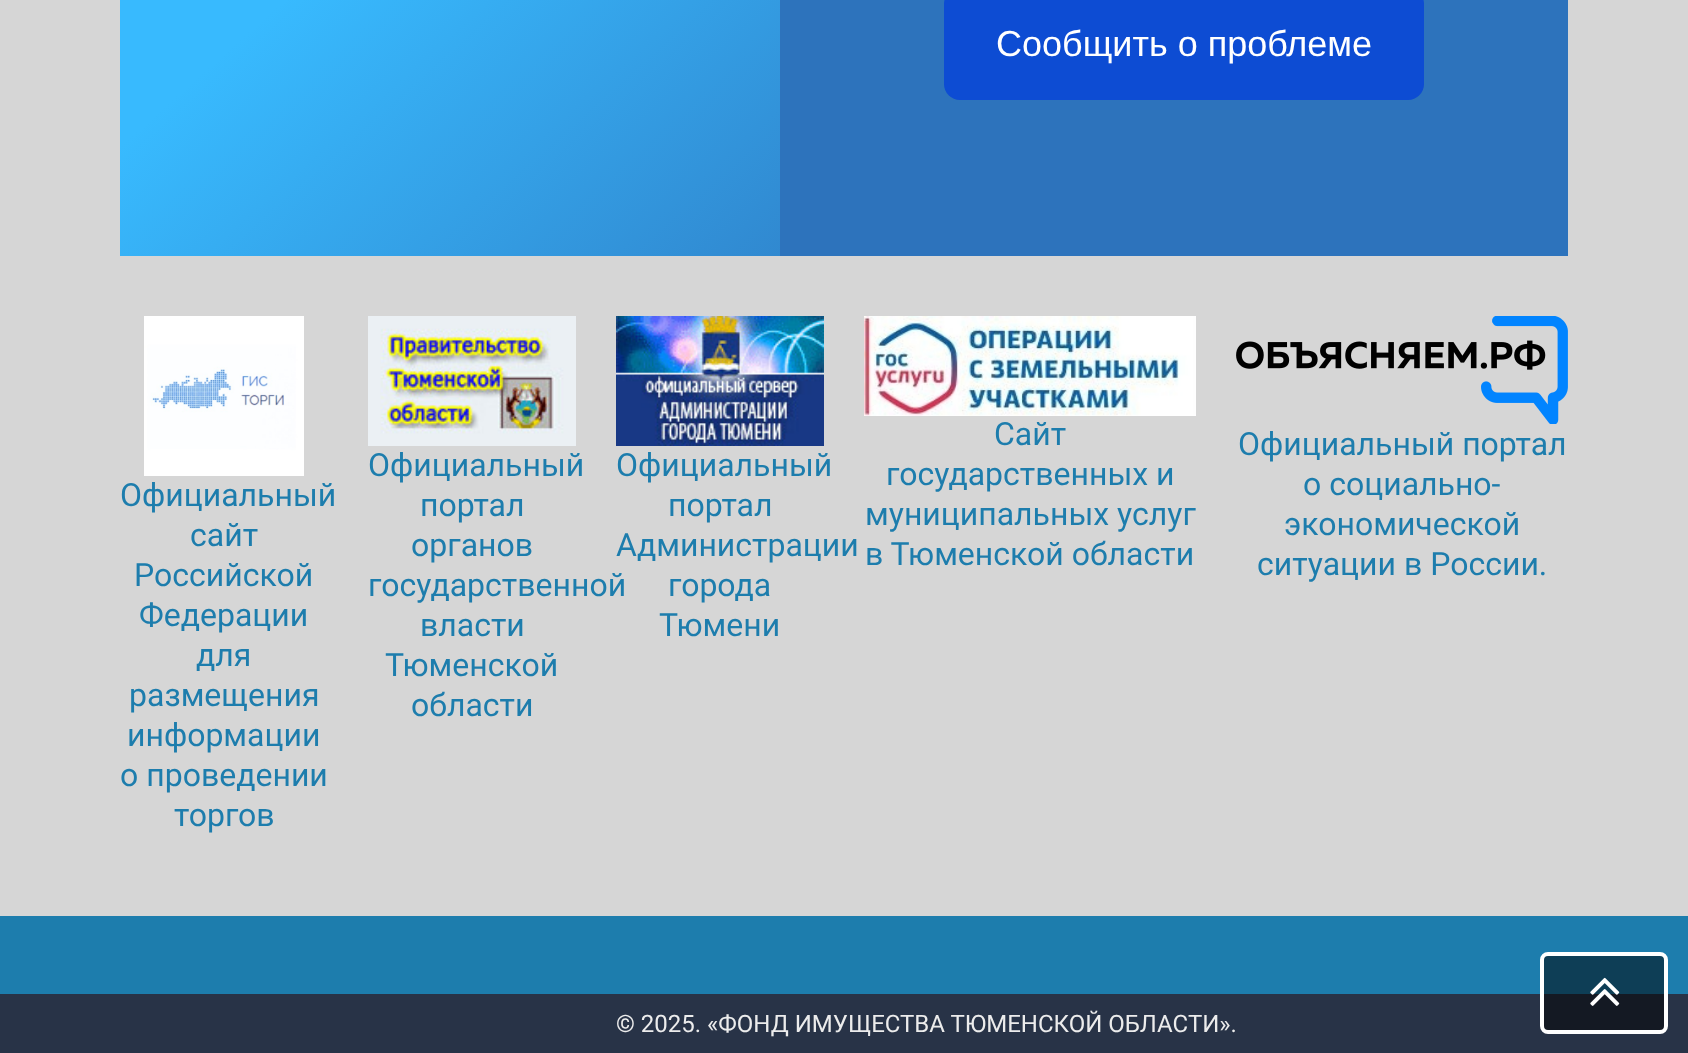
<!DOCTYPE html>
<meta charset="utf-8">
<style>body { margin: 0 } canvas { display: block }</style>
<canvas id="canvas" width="1688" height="1053"></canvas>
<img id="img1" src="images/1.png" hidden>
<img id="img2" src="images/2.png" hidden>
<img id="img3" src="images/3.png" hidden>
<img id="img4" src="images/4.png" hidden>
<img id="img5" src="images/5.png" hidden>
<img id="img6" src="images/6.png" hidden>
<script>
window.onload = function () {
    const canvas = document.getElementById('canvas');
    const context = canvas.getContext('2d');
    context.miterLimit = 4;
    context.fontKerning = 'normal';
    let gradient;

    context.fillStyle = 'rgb(214, 214, 214)';
    context.fillRect(0, 0, 1688, 1053);
    gradient = context.createLinearGradient(376, -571, 1312, 483);
    gradient.addColorStop(0.26, 'rgb(56, 186, 254)');
    gradient.addColorStop(0.79, 'rgb(45, 115, 188)');
    context.fillStyle = gradient;
    context.fillRect(120, 0, 660, 256);
    context.fillStyle = 'rgb(45, 115, 188)';
    context.fillRect(780, 0, 788, 256);
    context.fillStyle = 'rgb(13, 76, 211)';
    context.beginPath();
    context.roundRect(944, -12, 480, 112, 16);
    context.fill();
    context.drawImage(document.getElementById('img1'), 144, 316, 160, 160);
    context.drawImage(document.getElementById('img2'), 368, 316, 208, 130);
    context.drawImage(document.getElementById('img3'), 616, 316, 208, 130);
    context.drawImage(document.getElementById('img4'), 864, 316, 332, 100);
    context.drawImage(document.getElementById('img5'), 1236, 316, 332, 108);
    context.fillStyle = 'rgb(29, 125, 173)';
    context.fillRect(0, 916, 1688, 78);
    context.fillStyle = 'rgb(40, 51, 71)';
    context.fillRect(0, 994, 1688, 59);
    context.fillStyle = 'rgba(0, 0, 0, 0.5)';
    context.beginPath();
    context.roundRect(1542, 954, 124, 78, 6);
    context.fill();
    context.strokeStyle = 'rgb(255, 255, 255)';
    context.lineWidth = 4;
    context.stroke();
    context.drawImage(document.getElementById('img6'), 1590, 977, 30, 29);
    context.font = '36px Liberation Sans';
    context.fillStyle = 'rgb(255, 255, 255)';
    context.fillText('Сообщить о проблеме', 996, 56);
    context.font = '32px Roboto';
    context.fillStyle = 'rgb(29, 125, 173)';
    context.fillText('Официальный', 120, 506);
    context.fillText('сайт', 190, 546);
    context.fillText('Российской', 134, 586);
    context.fillText('Федерации', 139, 626);
    context.fillText('для', 196, 666);
    context.fillText('размещения', 129, 706);
    context.fillText('информации', 127, 746);
    context.fillText('о проведении', 120, 786);
    context.fillText('торгов', 174, 826);
    context.fillText('Официальный', 368, 476);
    context.fillText('портал', 420, 516);
    context.fillText('органов', 411, 556);
    context.fillText('государственной', 368, 596);
    context.fillText('власти', 420, 636);
    context.fillText('Тюменской', 385, 676);
    context.fillText('области', 411, 716);
    context.fillText('Официальный', 616, 476);
    context.fillText('портал', 668, 516);
    context.fillText('Администрации', 616, 556);
    context.fillText('города', 668, 596);
    context.fillText('Тюмени', 659, 636);
    context.fillText('Сайт', 994, 445);
    context.fillText('государственных и', 886, 485);
    context.fillText('муниципальных услуг', 865, 525);
    context.fillText('в Тюменской области', 865, 565);
    context.fillText('Официальный портал', 1238, 455);
    context.fillText('о социально-', 1303, 495);
    context.fillText('экономической', 1284, 535);
    context.fillText('ситуации в России.', 1257, 575);
    context.font = '24px Roboto';
    context.fillStyle = 'rgb(236, 236, 236)';
    context.fillText('© 2025. «ФОНД ИМУЩЕСТВА ТЮМЕНСКОЙ ОБЛАСТИ».', 616, 1032);
};
</script>
